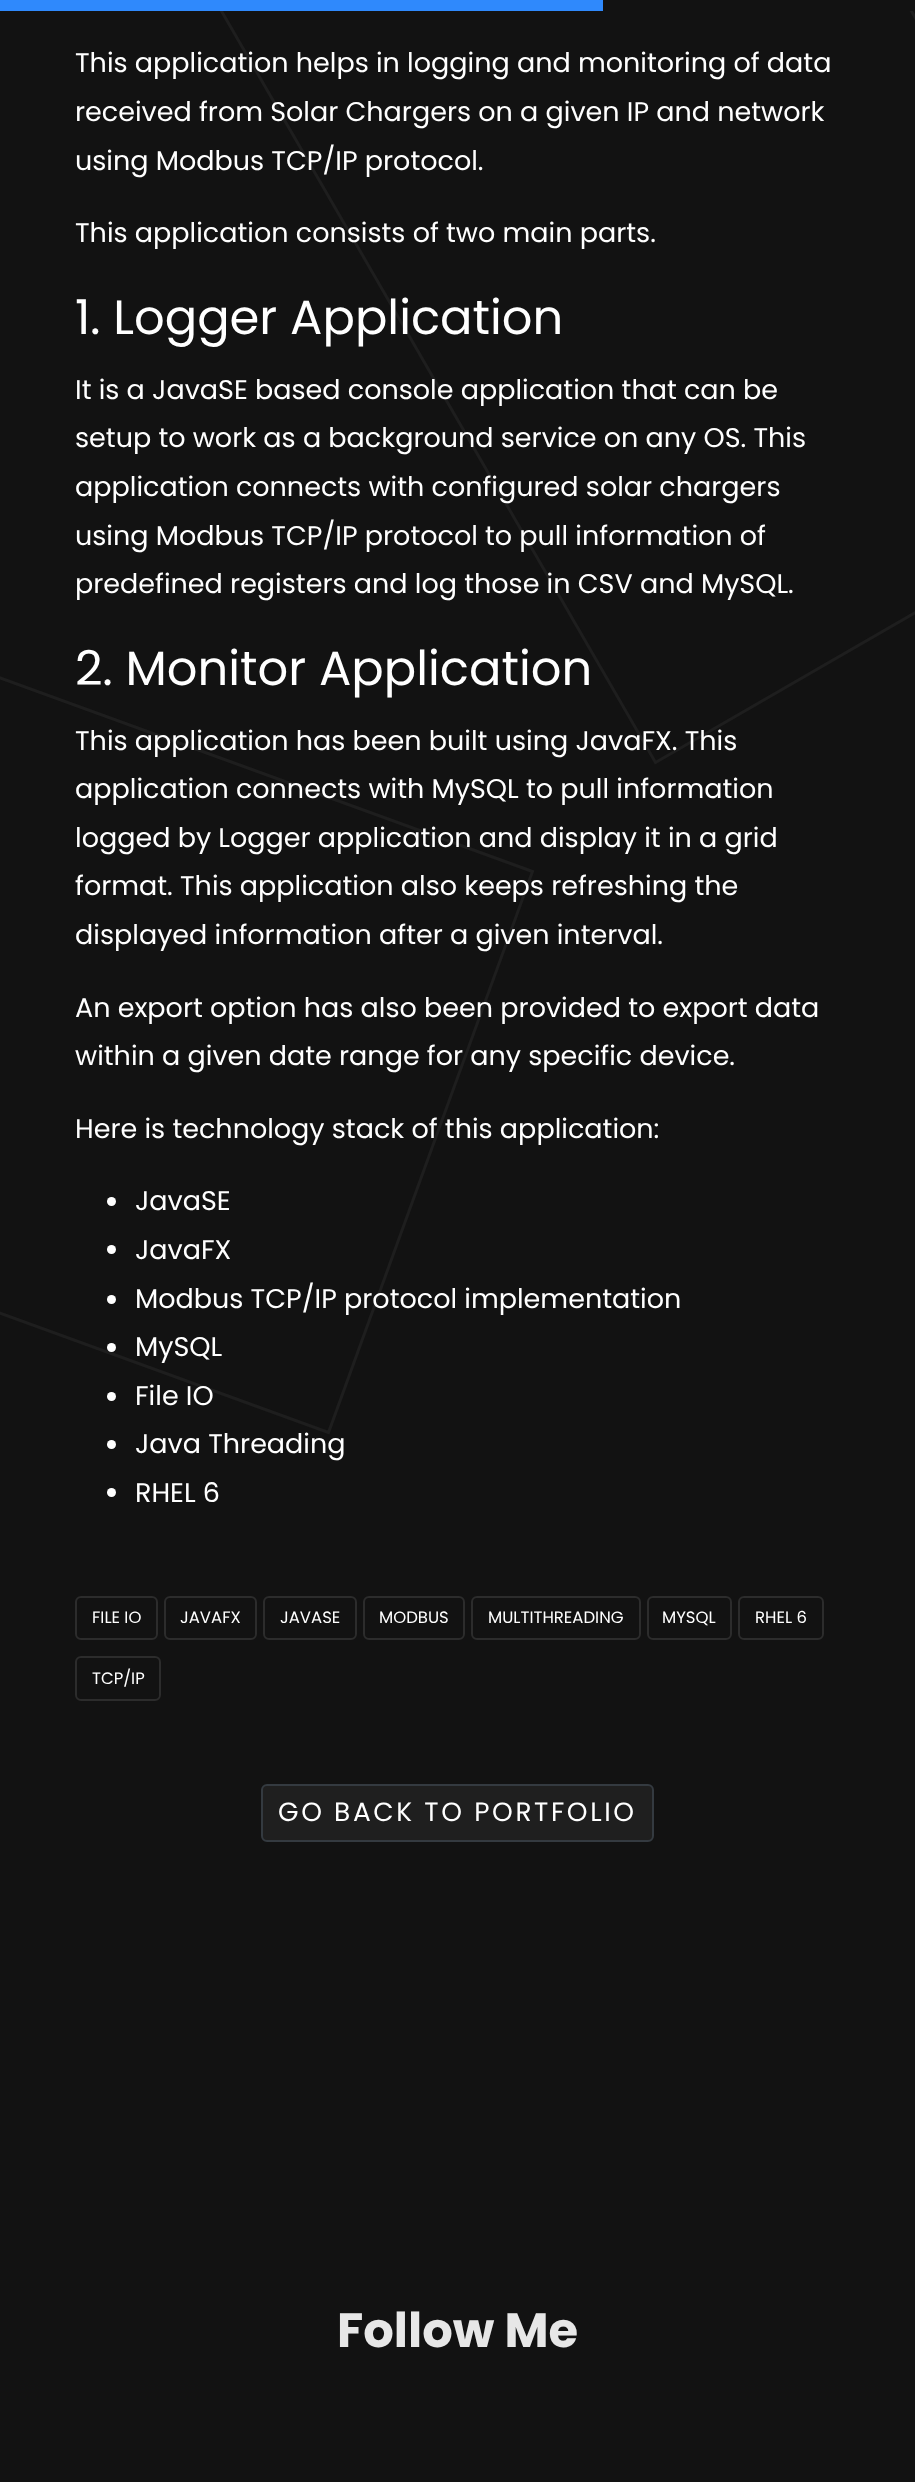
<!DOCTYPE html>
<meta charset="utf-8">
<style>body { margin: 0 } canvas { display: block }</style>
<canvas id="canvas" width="915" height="2482"></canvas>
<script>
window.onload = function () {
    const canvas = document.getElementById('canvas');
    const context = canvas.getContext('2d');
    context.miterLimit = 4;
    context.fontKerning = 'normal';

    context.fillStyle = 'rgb(18, 18, 18)';
    context.fillRect(0, 0, 915, 2482);
    context.beginPath();
    context.moveTo(-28.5, 667.5);
    context.lineTo(532.5, 871.5);
    context.lineTo(328.5, 1432.5);
    context.lineTo(-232.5, 1228.5);
    context.closePath();
    context.strokeStyle = 'rgb(30, 30, 30)';
    context.lineWidth = 3;
    context.stroke();
    context.beginPath();
    context.moveTo(207, -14);
    context.lineTo(724.5, -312.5);
    context.lineTo(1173, 464);
    context.lineTo(655.5, 762.5);
    context.closePath();
    context.stroke();
    context.fillRect(903, 0, 10, 11);
    context.fillStyle = 'rgb(47, 137, 252)';
    context.fillRect(0, 0, 603, 11);
    context.fillStyle = 'rgb(255, 255, 255)';
    context.beginPath();
    context.arc(111.5, 1201.5, 4.5, 0, 2 * Math.PI);
    context.fill();
    context.beginPath();
    context.arc(111.5, 1249.5, 4.5, 0, 2 * Math.PI);
    context.fill();
    context.beginPath();
    context.arc(111.5, 1299.5, 4.5, 0, 2 * Math.PI);
    context.fill();
    context.beginPath();
    context.arc(111.5, 1347.5, 4.5, 0, 2 * Math.PI);
    context.fill();
    context.beginPath();
    context.arc(111.5, 1396.5, 4.5, 0, 2 * Math.PI);
    context.fill();
    context.beginPath();
    context.arc(111.5, 1444.5, 4.5, 0, 2 * Math.PI);
    context.fill();
    context.beginPath();
    context.arc(111.5, 1492.5, 4.5, 0, 2 * Math.PI);
    context.fill();
    context.beginPath();
    context.roundRect(76, 1597, 81, 42, 5);
    context.strokeStyle = 'rgb(44, 44, 44)';
    context.lineWidth = 2;
    context.stroke();
    context.beginPath();
    context.roundRect(165, 1597, 91, 42, 5);
    context.stroke();
    context.beginPath();
    context.roundRect(264, 1597, 92, 42, 5);
    context.stroke();
    context.beginPath();
    context.roundRect(364, 1597, 100, 42, 5);
    context.stroke();
    context.beginPath();
    context.roundRect(472, 1597, 168, 42, 5);
    context.stroke();
    context.beginPath();
    context.roundRect(648, 1597, 83, 42, 5);
    context.stroke();
    context.beginPath();
    context.roundRect(739, 1597, 84, 42, 5);
    context.stroke();
    context.beginPath();
    context.roundRect(76, 1657, 84, 43, 5);
    context.stroke();
    context.fillStyle = 'rgb(31, 31, 31)';
    context.beginPath();
    context.roundRect(262, 1785, 391, 56, 5);
    context.fill();
    context.strokeStyle = 'rgb(52, 58, 64)';
    context.stroke();
    context.font = '27px Poppins';
    context.fillStyle = 'rgb(255, 255, 255)';
    context.fillText('This application helps in logging and monitoring of data', 75, 72);
    context.fillText('received from Solar Chargers on a given IP and network', 75, 121);
    context.fillText('using Modbus TCP/IP protocol.', 75, 170);
    context.fillText('This application consists of two main parts.', 75, 242);
    context.font = '48px Poppins';
    context.fillText('1. Logger Application', 75, 334);
    context.font = '27px Poppins';
    context.fillText('It is a JavaSE based console application that can be', 75, 399);
    context.fillText('setup to work as a background service on any OS. This', 75, 447);
    context.fillText('application connects with configured solar chargers', 75, 496);
    context.fillText('using Modbus TCP/IP protocol to pull information of', 75, 545);
    context.fillText('predefined registers and log those in CSV and MySQL.', 75, 593);
    context.font = '48px Poppins';
    context.fillText('2. Monitor Application', 75, 685);
    context.font = '27px Poppins';
    context.fillText('This application has been built using JavaFX. This', 75, 750);
    context.fillText('application connects with MySQL to pull information', 75, 798);
    context.fillText('logged by Logger application and display it in a grid', 75, 847);
    context.fillText('format. This application also keeps refreshing the', 75, 895);
    context.fillText('displayed information after a given interval.', 75, 944);
    context.fillText('An export option has also been provided to export data', 75, 1017);
    context.fillText('within a given date range for any specific device.', 75, 1065);
    context.fillText('Here is technology stack of this application:', 75, 1138);
    context.fillText('JavaSE', 135, 1210);
    context.fillText('JavaFX', 135, 1259);
    context.fillText('Modbus TCP/IP protocol implementation', 135, 1308);
    context.fillText('MySQL', 135, 1356);
    context.fillText('File IO', 135, 1405);
    context.fillText('Java Threading', 135, 1453);
    context.fillText('RHEL 6', 135, 1502);
    context.font = '16.5px Poppins';
    context.fillText('FILE IO', 92, 1623);
    context.fillText('JAVAFX', 180, 1623);
    context.fillText('JAVASE', 280, 1623);
    context.fillText('MODBUS', 379, 1623);
    context.fillText('MULTITHREADING', 488, 1623);
    context.fillText('MYSQL', 662, 1623);
    context.fillText('RHEL 6', 755, 1623);
    context.fillText('TCP/IP', 92, 1684);
    context.letterSpacing = '2.6px';
    context.font = '26.4px Poppins';
    context.fillText('GO BACK TO PORTFOLIO', 278, 1821);
    context.letterSpacing = '0px';
    context.font = 'bold 48px Poppins';
    context.fillStyle = 'rgb(231, 231, 231)';
    context.fillText('Follow Me', 337, 2347);
};
</script>
